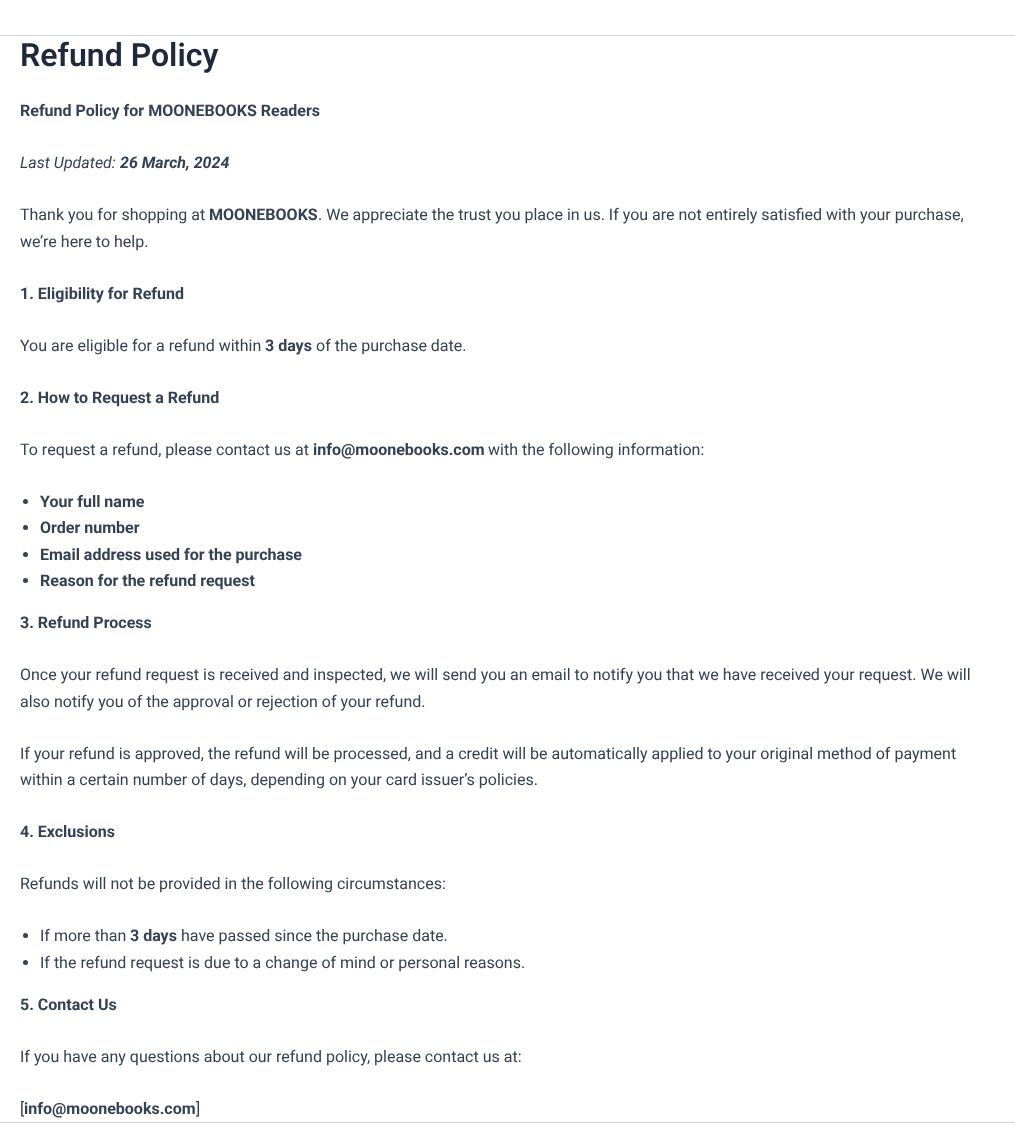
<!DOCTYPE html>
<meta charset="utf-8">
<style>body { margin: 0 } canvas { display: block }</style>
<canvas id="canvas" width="1015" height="1139"></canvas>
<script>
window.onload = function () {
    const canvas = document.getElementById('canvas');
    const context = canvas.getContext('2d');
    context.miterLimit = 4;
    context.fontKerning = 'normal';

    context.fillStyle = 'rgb(255, 255, 255)';
    context.fillRect(0, 0, 1015, 1139);
    context.fillStyle = 'rgb(209, 213, 219)';
    context.fillRect(0, 35, 1015, 1);
    context.fillStyle = 'rgb(51, 65, 85)';
    context.beginPath();
    context.arc(25.5, 501.5, 2.5, 0, 2 * Math.PI);
    context.fill();
    context.beginPath();
    context.arc(25.5, 527.5, 2.5, 0, 2 * Math.PI);
    context.fill();
    context.beginPath();
    context.arc(25.5, 554.5, 2.5, 0, 2 * Math.PI);
    context.fill();
    context.beginPath();
    context.arc(25.5, 580.5, 2.5, 0, 2 * Math.PI);
    context.fill();
    context.beginPath();
    context.arc(25.5, 935.5, 2.5, 0, 2 * Math.PI);
    context.fill();
    context.beginPath();
    context.arc(25.5, 962.5, 2.5, 0, 2 * Math.PI);
    context.fill();
    context.fillStyle = 'rgb(209, 213, 219)';
    context.fillRect(0, 1122, 1015, 1);
    context.font = '600 32px Roboto';
    context.fillStyle = 'rgb(30, 41, 59)';
    context.fillText('Refund Policy', 20, 66);
    context.font = 'bold 16px Roboto';
    context.fillStyle = 'rgb(51, 65, 85)';
    context.fillText('Refund Policy for MOONEBOOKS Readers', 20, 116);
    context.font = 'italic 16px Roboto';
    context.fillText('Last Updated:', 20, 168);
    context.font = 'italic bold 16px Roboto';
    context.fillText('26 March, 2024', 120, 168);
    context.font = '16px Roboto';
    context.fillText('Thank you for shopping at', 20, 220);
    context.font = 'bold 16px Roboto';
    context.fillText('MOONEBOOKS', 209, 220);
    context.font = '16px Roboto';
    context.fillText('. We appreciate the trust you place in us. If you are not entirely satisfied with your purchase,', 318, 220);
    context.fillText('we’re here to help.', 20, 247);
    context.font = 'bold 16px Roboto';
    context.fillText('1. Eligibility for Refund', 20, 299);
    context.font = '16px Roboto';
    context.fillText('You are eligible for a refund within', 20, 351);
    context.font = 'bold 16px Roboto';
    context.fillText('3 days', 265, 351);
    context.font = '16px Roboto';
    context.fillText('of the purchase date.', 316, 351);
    context.font = 'bold 16px Roboto';
    context.fillText('2. How to Request a Refund', 20, 403);
    context.font = '16px Roboto';
    context.fillText('To request a refund, please contact us at', 20, 455);
    context.font = 'bold 16px Roboto';
    context.fillText('info@moonebooks.com', 313, 455);
    context.font = '16px Roboto';
    context.fillText('with the following information:', 488, 455);
    context.font = 'bold 16px Roboto';
    context.fillText('Your full name', 40, 507);
    context.fillText('Order number', 40, 533);
    context.fillText('Email address used for the purchase', 40, 560);
    context.fillText('Reason for the refund request', 40, 586);
    context.fillText('3. Refund Process', 20, 628);
    context.font = '16px Roboto';
    context.fillText('Once your refund request is received and inspected, we will send you an email to notify you that we have received your request. We will', 20, 680);
    context.fillText('also notify you of the approval or rejection of your refund.', 20, 707);
    context.fillText('If your refund is approved, the refund will be processed, and a credit will be automatically applied to your original method of payment', 20, 759);
    context.fillText('within a certain number of days, depending on your card issuer’s policies.', 20, 785);
    context.font = 'bold 16px Roboto';
    context.fillText('4. Exclusions', 20, 837);
    context.font = '16px Roboto';
    context.fillText('Refunds will not be provided in the following circumstances:', 20, 889);
    context.fillText('If more than', 40, 941);
    context.font = 'bold 16px Roboto';
    context.fillText('3 days', 130, 941);
    context.font = '16px Roboto';
    context.fillText('have passed since the purchase date.', 181, 941);
    context.fillText('If the refund request is due to a change of mind or personal reasons.', 40, 968);
    context.font = 'bold 16px Roboto';
    context.fillText('5. Contact Us', 20, 1010);
    context.font = '16px Roboto';
    context.fillText('If you have any questions about our refund policy, please contact us at:', 20, 1062);
    context.fillText('[', 20, 1114);
    context.font = 'bold 16px Roboto';
    context.fillText('info@moonebooks.com', 24, 1114);
    context.font = '16px Roboto';
    context.fillText(']', 196, 1114);
};
</script>
